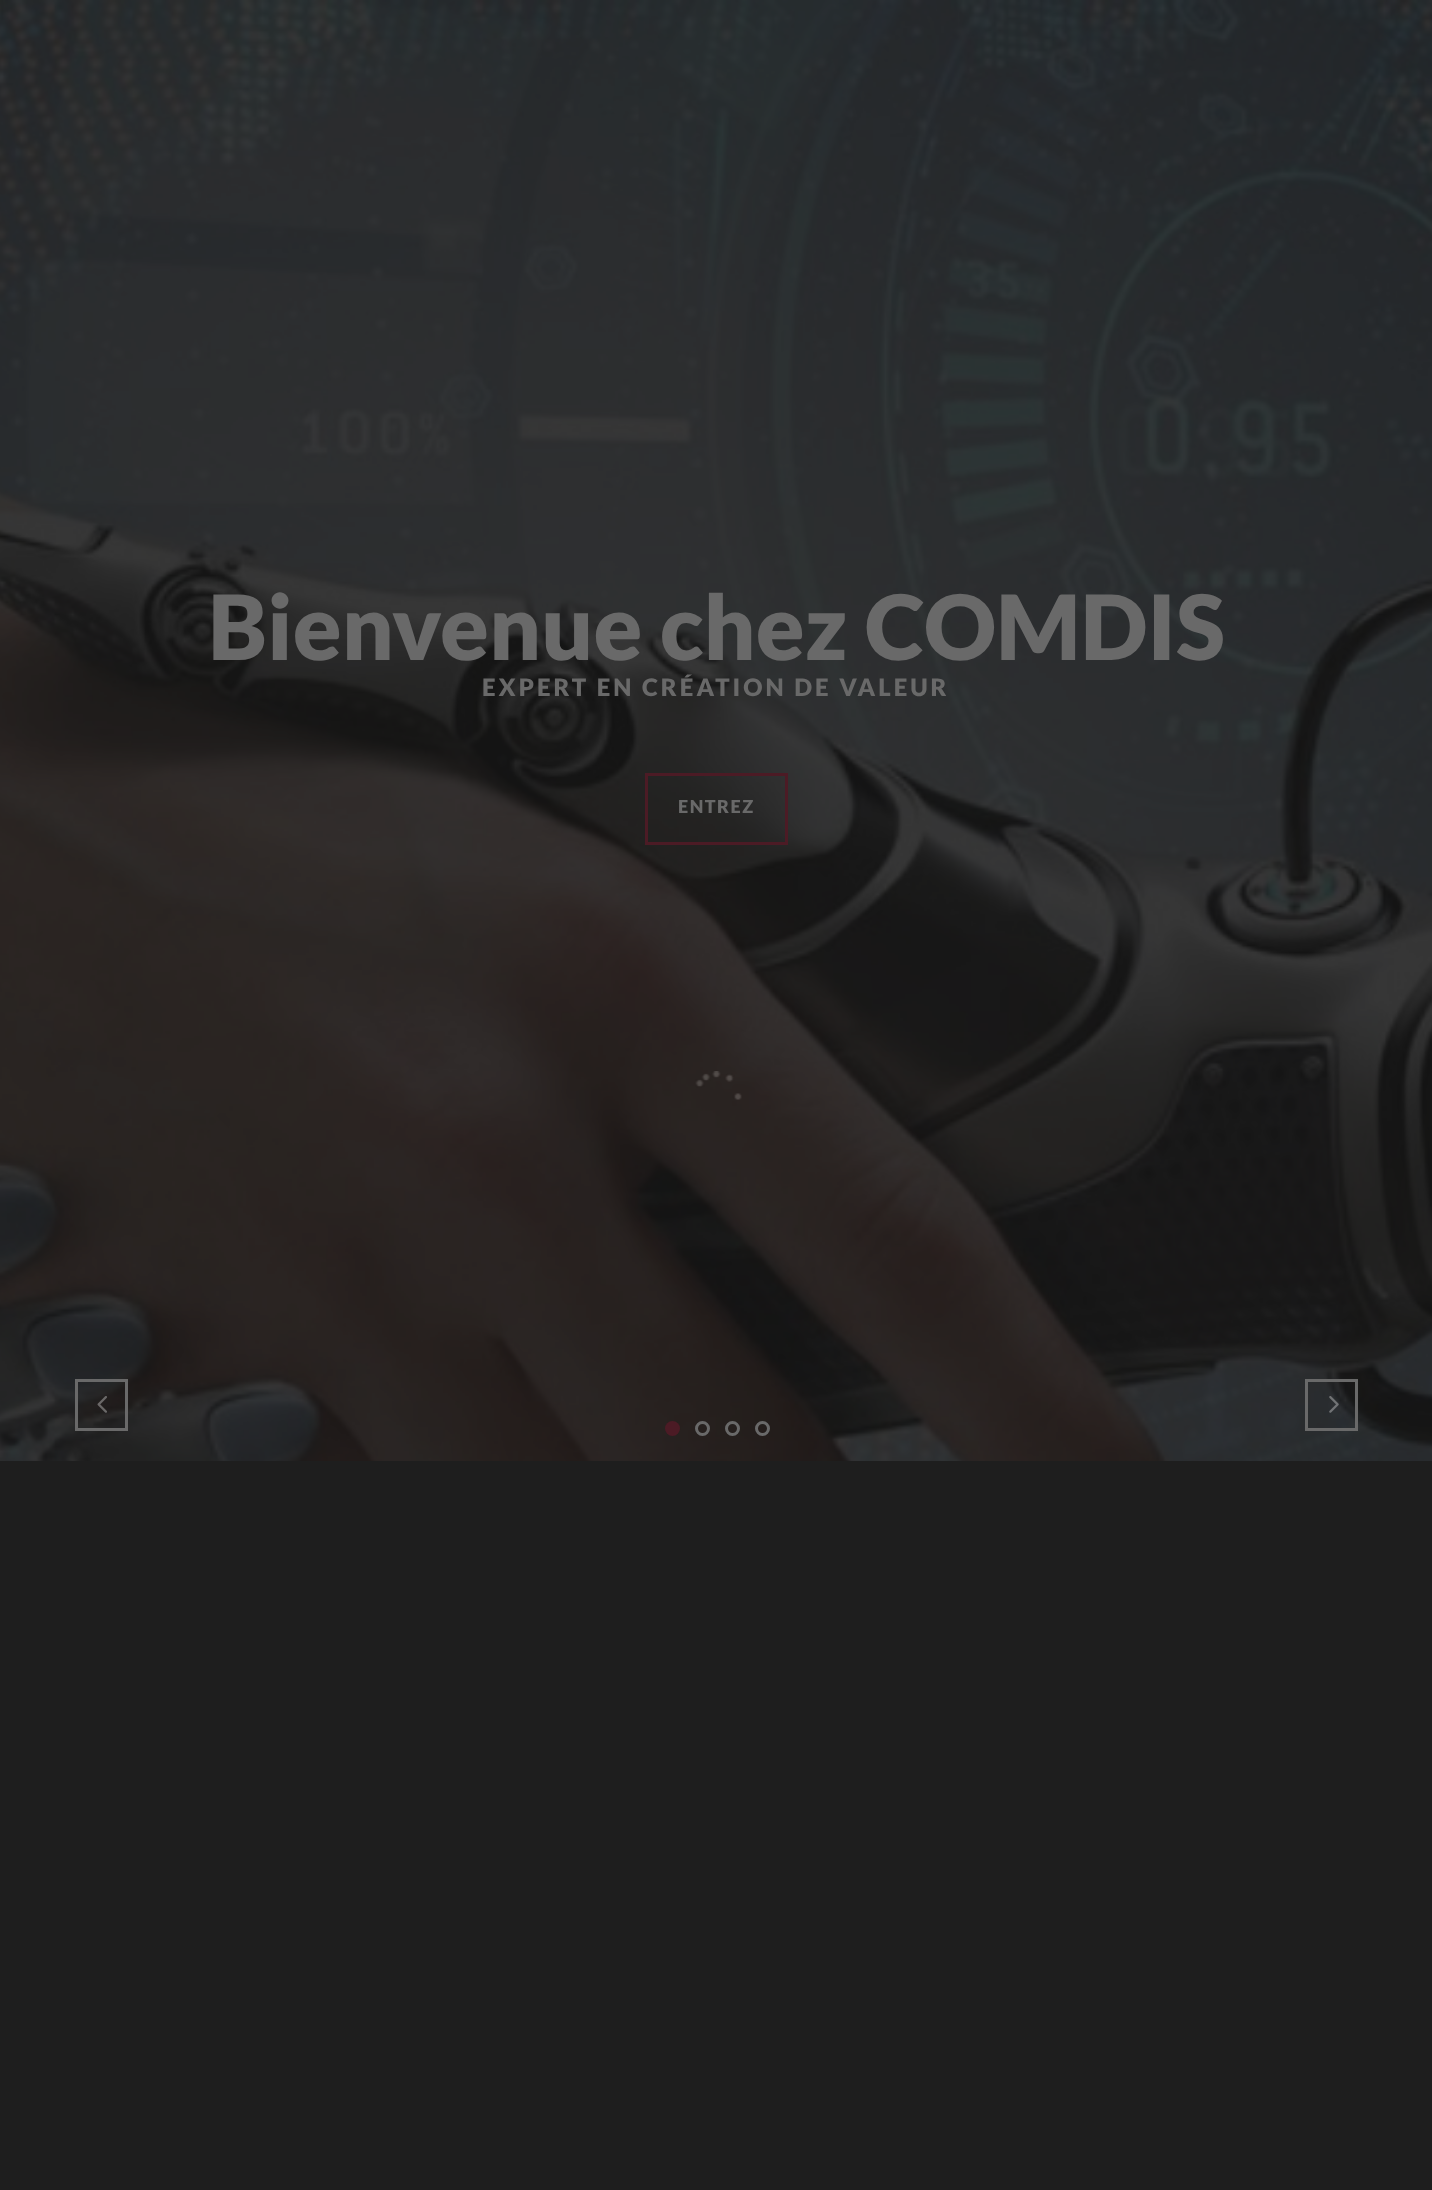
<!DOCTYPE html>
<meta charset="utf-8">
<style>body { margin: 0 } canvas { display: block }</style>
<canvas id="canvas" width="1432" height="2190"></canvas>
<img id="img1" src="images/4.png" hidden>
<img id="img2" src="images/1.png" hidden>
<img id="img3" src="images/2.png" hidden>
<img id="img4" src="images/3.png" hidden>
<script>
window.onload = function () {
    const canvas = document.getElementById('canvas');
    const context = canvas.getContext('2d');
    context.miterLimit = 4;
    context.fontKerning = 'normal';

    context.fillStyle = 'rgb(30, 30, 30)';
    context.fillRect(0, 0, 1432, 2190);
    context.drawImage(document.getElementById('img1'), 695, 1071, 47, 29);
    context.drawImage(document.getElementById('img2'), 0, 0, 1432, 1461);
    context.strokeStyle = 'rgb(76, 27, 37)';
    context.lineWidth = 3;
    context.strokeRect(646.5, 774.5, 140, 69);
    context.strokeStyle = 'rgb(105, 105, 105)';
    context.strokeRect(76.5, 1380.5, 50, 49);
    context.drawImage(document.getElementById('img3'), 97, 1396, 10, 17);
    context.strokeRect(1306.5, 1380.5, 50, 49);
    context.drawImage(document.getElementById('img4'), 1329, 1396, 10, 17);
    context.fillStyle = 'rgb(76, 27, 37)';
    context.beginPath();
    context.arc(672.5, 1428.5, 7.5, 0, 2 * Math.PI);
    context.fill();
    context.beginPath();
    context.arc(702.5, 1428.5, 6, 0, 2 * Math.PI);
    context.stroke();
    context.beginPath();
    context.arc(732.5, 1428.5, 6, 0, 2 * Math.PI);
    context.stroke();
    context.beginPath();
    context.arc(762.5, 1428.5, 6, 0, 2 * Math.PI);
    context.stroke();
    context.font = '900 90px Lato';
    context.fillStyle = 'rgb(105, 105, 105)';
    context.fillText('Bienvenue chez COMDIS', 208, 660);
    context.letterSpacing = '3px';
    context.font = '900 24px Lato';
    context.fillText('EXPERT EN CRÉATION DE VALEUR', 482, 696);
    context.letterSpacing = '1.5px';
    context.font = '900 18px Lato';
    context.fillText('ENTREZ', 678, 813);
};
</script>
